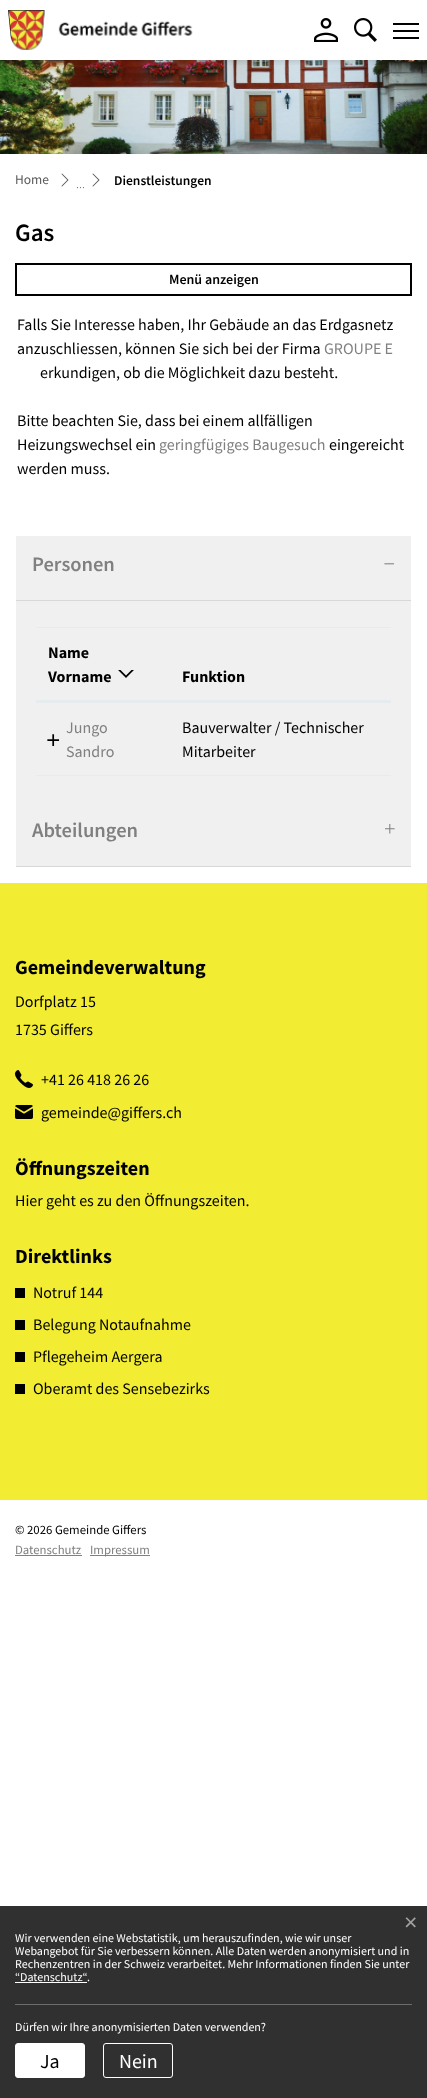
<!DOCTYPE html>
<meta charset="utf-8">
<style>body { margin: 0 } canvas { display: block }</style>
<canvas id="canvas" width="427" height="2098"></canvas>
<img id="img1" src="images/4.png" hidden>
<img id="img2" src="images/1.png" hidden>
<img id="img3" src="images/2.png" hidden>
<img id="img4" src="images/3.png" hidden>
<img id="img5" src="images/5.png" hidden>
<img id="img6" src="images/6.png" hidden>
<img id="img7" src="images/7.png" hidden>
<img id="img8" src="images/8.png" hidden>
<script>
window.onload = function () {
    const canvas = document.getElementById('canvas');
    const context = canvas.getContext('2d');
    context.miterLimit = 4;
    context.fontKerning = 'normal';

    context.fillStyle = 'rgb(255, 255, 255)';
    context.fillRect(0, 0, 427, 2098);
    context.drawImage(document.getElementById('img1'), 0, 60, 427, 94);
    context.save();
    context.beginPath();
    context.rect(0, 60, 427, 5);
    context.clip();
    context.fillStyle = 'rgba(0, 0, 0, 0.25)';
    context.filter = 'blur(5px)';
    context.beginPath();
    context.rect(0, -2, 427, 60);
    context.fill();
    context.filter = 'none';
    context.restore();
    context.drawImage(document.getElementById('img2'), 8, 10, 185, 40);
    context.drawImage(document.getElementById('img3'), 314, 18, 24, 24);
    context.drawImage(document.getElementById('img4'), 354, 18, 23, 24);
    context.fillStyle = 'rgb(0, 0, 0)';
    context.fillRect(393, 23, 26, 2);
    context.fillRect(393, 30, 26, 2);
    context.fillRect(393, 37, 26, 2);
    context.drawImage(document.getElementById('img5'), 61, 173, 39, 14);
    context.strokeStyle = 'rgb(0, 0, 0)';
    context.lineWidth = 2;
    context.strokeRect(16, 264, 395, 31);
    context.fillStyle = 'rgb(240, 240, 240)';
    context.fillRect(16, 536, 395, 330);
    context.fillStyle = 'rgb(216, 216, 216)';
    context.fillRect(16, 600, 395, 1);
    context.fillStyle = 'rgb(230, 236, 238)';
    context.fillRect(36, 775, 355, 1);
    context.fillRect(36, 627, 355, 1);
    context.fillRect(36, 700, 355, 2);
    context.drawImage(document.getElementById('img6'), 118, 670, 16, 8);
    context.fillRect(36, 702, 355, 1);
    context.fillStyle = 'rgb(216, 216, 216)';
    context.fillRect(16, 866, 395, 1);
    context.fillStyle = 'rgb(242, 237, 50)';
    context.fillRect(0, 883, 427, 617);
    context.drawImage(document.getElementById('img7'), 15, 1070, 18, 18);
    context.drawImage(document.getElementById('img8'), 15, 1105, 18, 14);
    context.fillStyle = 'rgb(0, 0, 0)';
    context.fillRect(15, 1288, 10, 10);
    context.fillRect(15, 1320, 10, 10);
    context.fillRect(15, 1352, 10, 10);
    context.fillRect(15, 1384, 10, 10);
    context.fillStyle = 'rgb(128, 128, 128)';
    context.fillRect(15, 1555, 67, 1);
    context.fillRect(90, 1555, 60, 1);
    context.fillStyle = 'rgb(48, 48, 48)';
    context.fillRect(0, 1906, 427, 192);
    context.fillStyle = 'rgb(109, 109, 109)';
    context.fillRect(15, 2004, 397, 1);
    context.fillStyle = 'rgb(255, 255, 255)';
    context.fillRect(15, 1982, 72, 1);
    context.beginPath();
    context.roundRect(15.5, 2043.5, 69, 34, 2.5);
    context.fill();
    context.strokeStyle = 'rgb(255, 255, 255)';
    context.lineWidth = 1;
    context.stroke();
    context.beginPath();
    context.roundRect(103.5, 2043.5, 69, 34, 2.5);
    context.stroke();
    context.font = '13.5px Source Sans Pro';
    context.fillStyle = 'rgb(89, 90, 92)';
    context.fillText('Home', 15, 184);
    context.font = '300 13.5px Source Sans Pro';
    context.fillStyle = 'rgb(108, 117, 125)';
    context.fillText('...', 76, 188);
    context.font = '600 13.5px Source Sans Pro';
    context.fillStyle = 'rgb(0, 0, 0)';
    context.fillText('Dienstleistungen', 114, 185);
    context.font = '600 25px Source Sans Pro';
    context.fillText('Gas', 15, 241);
    context.font = '600 14px Source Sans Pro';
    context.fillText('Menü anzeigen', 169, 284);
    context.font = '16px Source Sans Pro';
    context.fillText('Falls Sie Interesse haben, Ihr Gebäude an das Erdgasnetz', 17, 330);
    context.fillText('anzuschliessen, können Sie sich bei der Firma', 17, 354);
    context.fillStyle = 'rgb(128, 128, 128)';
    context.fillText('GROUPE E', 324, 354);
    context.fillStyle = 'rgb(0, 0, 0)';
    context.fillText('erkundigen, ob die Möglichkeit dazu besteht.', 40, 378);
    context.fillText('Bitte beachten Sie, dass bei einem allfälligen', 17, 426);
    context.fillText('Heizungswechsel ein', 17, 450);
    context.fillStyle = 'rgb(128, 128, 128)';
    context.fillText('geringfügiges Baugesuch', 159, 450);
    context.fillStyle = 'rgb(0, 0, 0)';
    context.fillText('eingereicht', 329, 450);
    context.fillText('werden muss.', 17, 474);
    context.font = '600 20.5px Source Sans Pro';
    context.fillStyle = 'rgb(128, 128, 128)';
    context.fillText('Personen', 32, 571);
    context.font = '20.5px Liberation Serif';
    context.save();
    context.translate(395, 557);
    context.rotate(180 * Math.PI / 180);
    context.fillText('−', 0, 0);
    context.restore();
    context.font = 'bold 16px Source Sans Pro';
    context.fillStyle = 'rgb(0, 0, 0)';
    context.fillText('Name', 48, 658);
    context.fillText('Vorname', 48, 682);
    context.fillText('Funktion', 182, 682);
    context.font = '16px Source Sans Pro';
    context.fillStyle = 'rgb(128, 128, 128)';
    context.fillText('Jungo', 66, 733);
    context.font = '24px Liberation Mono';
    context.fillStyle = 'rgb(0, 0, 0)';
    context.fillText('+', 46, 748);
    context.font = '16px Source Sans Pro';
    context.fillStyle = 'rgb(128, 128, 128)';
    context.fillText('Sandro', 66, 757);
    context.fillStyle = 'rgb(0, 0, 0)';
    context.fillText('Bauverwalter / Technischer', 182, 733);
    context.fillText('Mitarbeiter', 182, 757);
    context.font = '600 20.5px Source Sans Pro';
    context.fillStyle = 'rgb(128, 128, 128)';
    context.fillText('Abteilungen', 32, 837);
    context.font = '20.5px Liberation Serif';
    context.save();
    context.translate(383, 823);
    context.rotate(90 * Math.PI / 180);
    context.fillText('+', 0, 0);
    context.restore();
    context.font = 'bold 20px Source Sans Pro';
    context.fillStyle = 'rgb(0, 0, 0)';
    context.fillText('Gemeindeverwaltung', 15, 974);
    context.font = '16px Source Sans Pro';
    context.fillText('Dorfplatz 15', 15, 1007);
    context.fillText('1735 Giffers', 15, 1035);
    context.fillText('+41 26 418 26 26', 41, 1085);
    context.fillText('gemeinde@giffers.ch', 41, 1118);
    context.font = 'bold 20px Source Sans Pro';
    context.fillText('Öffnungszeiten', 15, 1175);
    context.font = '16px Source Sans Pro';
    context.fillText('Hier geht es zu den Öffnungszeiten.', 15, 1206);
    context.font = 'bold 20px Source Sans Pro';
    context.fillText('Direktlinks', 15, 1263);
    context.font = '16px Source Sans Pro';
    context.fillText('Notruf 144', 33, 1298);
    context.fillText('Belegung Notaufnahme', 33, 1330);
    context.fillText('Pflegeheim Aergera', 33, 1362);
    context.fillText('Oberamt des Sensebezirks', 33, 1394);
    context.font = '12.75px Source Sans Pro';
    context.fillText('© 2026 Gemeinde Giffers', 15, 1534);
    context.fillStyle = 'rgb(128, 128, 128)';
    context.fillText('Datenschutz', 15, 1554);
    context.fillText('Impressum', 90, 1554);
    context.font = '23px Liberation Sans';
    context.fillStyle = 'rgb(162, 162, 162)';
    context.fillText('×', 404, 1930);
    context.font = '12px Source Sans Pro';
    context.fillStyle = 'rgb(255, 255, 255)';
    context.fillText('Wir verwenden eine Webstatistik, um herauszufinden, wie wir unser', 15, 1942);
    context.fillText('Webangebot für Sie verbessern können. Alle Daten werden anonymisiert und in', 15, 1955);
    context.fillText('Rechenzentren in der Schweiz verarbeitet. Mehr Informationen finden Sie unter', 15, 1968);
    context.fillText('“Datenschutz“', 15, 1981);
    context.fillText('.', 87, 1981);
    context.fillText('Dürfen wir Ihre anonymisierten Daten verwenden?', 15, 2031);
    context.font = '20px Source Sans Pro';
    context.fillStyle = 'rgb(0, 0, 0)';
    context.fillText('Ja', 40, 2068);
    context.fillStyle = 'rgb(255, 255, 255)';
    context.fillText('Nein', 119, 2068);
};
</script>
